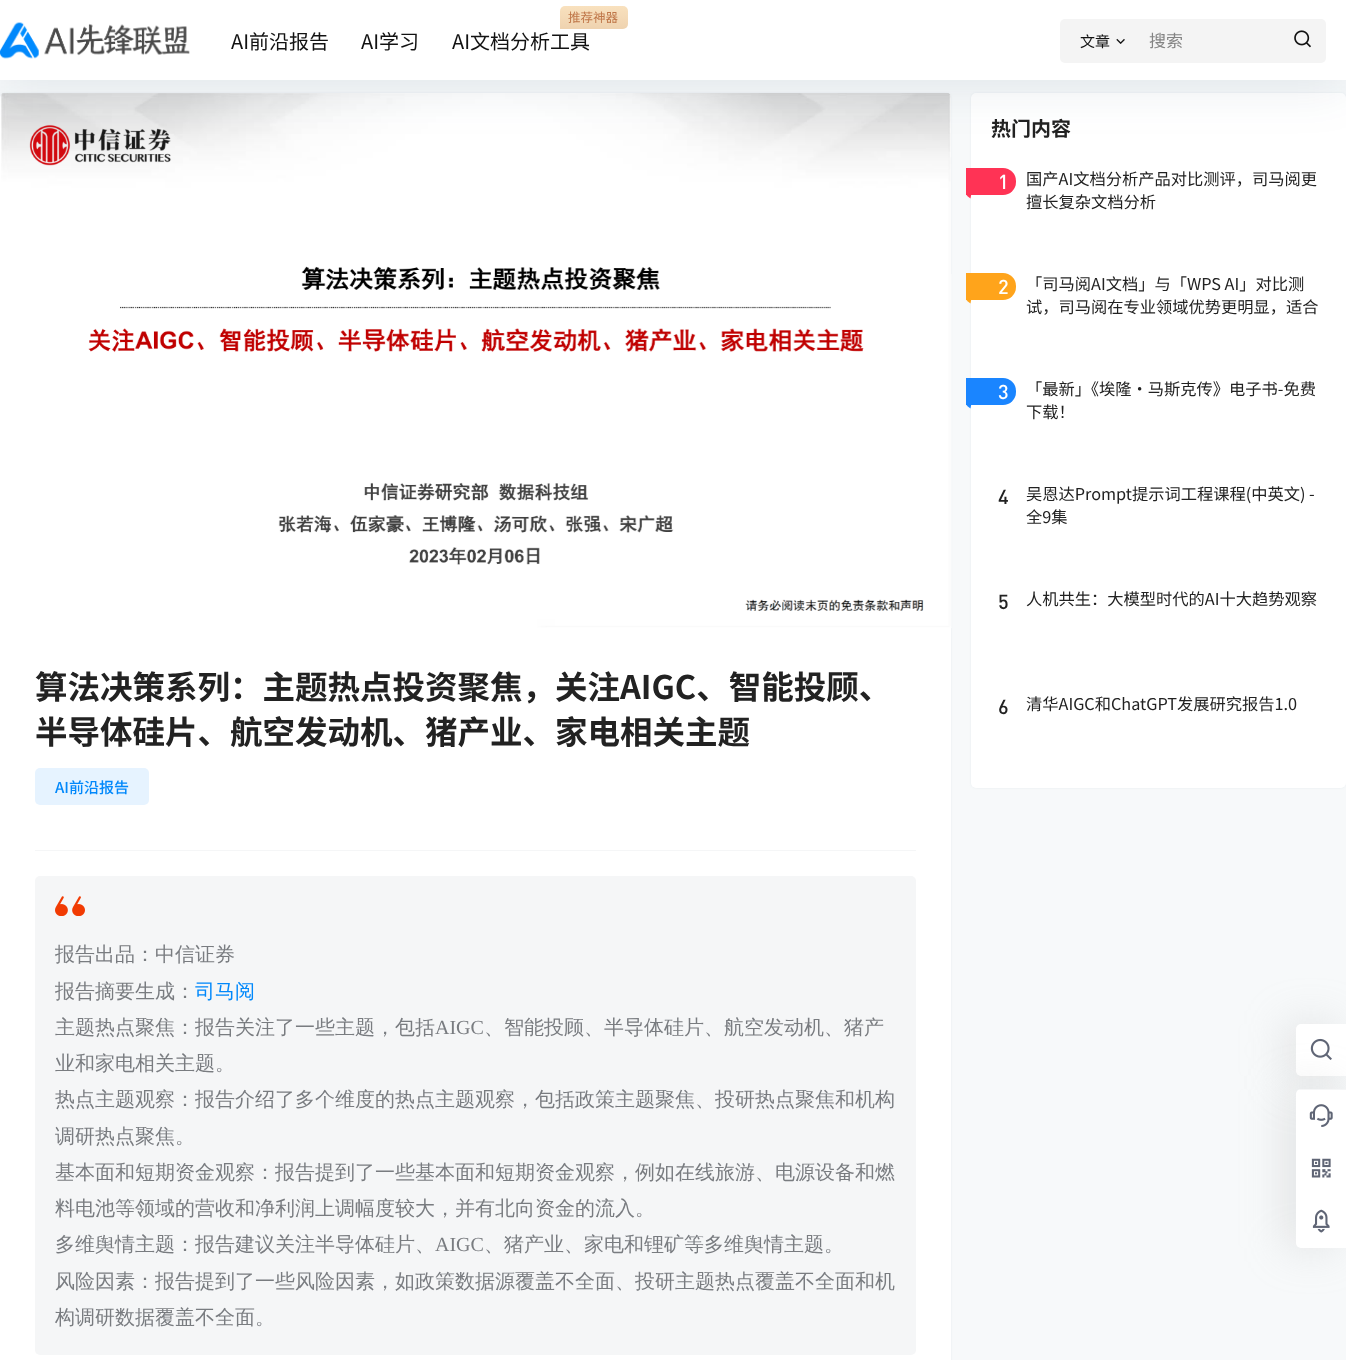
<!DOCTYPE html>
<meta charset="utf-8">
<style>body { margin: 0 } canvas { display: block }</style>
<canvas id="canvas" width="1346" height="1360"></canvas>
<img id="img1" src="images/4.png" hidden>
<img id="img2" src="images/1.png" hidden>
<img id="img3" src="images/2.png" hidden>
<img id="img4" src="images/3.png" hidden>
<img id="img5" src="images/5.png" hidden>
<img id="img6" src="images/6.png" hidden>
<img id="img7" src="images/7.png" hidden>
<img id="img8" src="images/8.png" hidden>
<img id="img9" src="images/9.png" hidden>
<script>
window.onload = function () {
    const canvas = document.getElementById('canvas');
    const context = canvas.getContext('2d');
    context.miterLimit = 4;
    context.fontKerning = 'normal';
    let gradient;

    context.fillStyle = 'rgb(247, 249, 250)';
    context.fillRect(0, 0, 1346, 1360);
    context.fillStyle = 'rgba(98, 124, 153, 0.1)';
    context.filter = 'blur(1px)';
    context.beginPath();
    context.roundRect(971, 93, 375, 695, 5);
    context.fill();
    context.filter = 'none';
    context.fillStyle = 'rgb(255, 255, 255)';
    context.beginPath();
    context.roundRect(971, 93, 375, 695, 5);
    context.fill();
    context.fillStyle = 'rgba(98, 124, 153, 0.1)';
    context.filter = 'blur(1px)';
    context.beginPath();
    context.roundRect(0, 93, 951, 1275, 5);
    context.fill();
    context.filter = 'none';
    context.fillStyle = 'rgb(255, 255, 255)';
    context.beginPath();
    context.roundRect(0, 93, 951, 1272, 5);
    context.fill();
    context.drawImage(document.getElementById('img1'), 1, 93, 951, 535);
    context.fillStyle = 'rgba(17, 58, 93, 0.1)';
    context.filter = 'blur(25px)';
    context.beginPath();
    context.rect(0, 6, 1346, 80);
    context.fill();
    context.filter = 'none';
    context.fillStyle = 'rgb(255, 255, 255)';
    context.fillRect(0, 0, 1346, 80);
    context.drawImage(document.getElementById('img2'), 0, 22, 190, 37);
    gradient = context.createLinearGradient(594, 28, 594, 5.6);
    gradient.addColorStop(0, 'rgb(239, 211, 176)');
    gradient.addColorStop(1, 'rgb(249, 225, 190)');
    context.fillStyle = gradient;
    context.beginPath();
    context.roundRect(560, 6, 68, 23, [5, 5, 5, 0]);
    context.fill();
    context.fillStyle = 'rgb(244, 244, 244)';
    context.beginPath();
    context.roundRect(1060, 19, 266, 44, 5);
    context.fill();
    context.drawImage(document.getElementById('img3'), 1116, 38, 9, 6);
    context.drawImage(document.getElementById('img4'), 1294, 30, 17, 18);
    context.fillStyle = 'rgb(255, 51, 85)';
    context.beginPath();
    context.roundRect(966, 168, 50, 27, [0, 13, 13, 0]);
    context.fill();
    context.beginPath();
    context.moveTo(970.5, 198.5);
    context.lineTo(966.5, 195.5);
    context.lineTo(971.5, 193);
    context.closePath();
    context.fill();
    context.fillStyle = 'rgb(255, 164, 27)';
    context.beginPath();
    context.roundRect(966, 273, 50, 27, [0, 13, 13, 0]);
    context.fill();
    context.beginPath();
    context.moveTo(970.5, 303.5);
    context.lineTo(966.5, 300.5);
    context.lineTo(971.5, 298);
    context.closePath();
    context.fill();
    context.fillStyle = 'rgb(26, 133, 255)';
    context.beginPath();
    context.roundRect(966, 378, 50, 27, [0, 13, 13, 0]);
    context.fill();
    context.beginPath();
    context.moveTo(970.5, 408.5);
    context.lineTo(966.5, 405.5);
    context.lineTo(971.5, 403);
    context.closePath();
    context.fill();
    context.fillStyle = 'rgb(245, 246, 247)';
    context.fillRect(35, 850, 881, 1);
    context.fillStyle = 'rgb(230, 243, 255)';
    context.beginPath();
    context.roundRect(35, 768, 114, 37, 5);
    context.fill();
    context.fillStyle = 'rgb(245, 246, 247)';
    context.beginPath();
    context.roundRect(35, 876, 881, 479, 5);
    context.fill();
    context.drawImage(document.getElementById('img5'), 55, 896, 30, 20);
    context.fillStyle = 'rgba(181, 181, 181, 0.32)';
    context.filter = 'blur(22px)';
    context.beginPath();
    context.roundRect(1286, 1024, 50, 52, 5);
    context.fill();
    context.filter = 'none';
    context.fillStyle = 'rgb(255, 255, 255)';
    context.beginPath();
    context.roundRect(1296, 1024, 50, 52, [5, 0, 0, 5]);
    context.fill();
    context.drawImage(document.getElementById('img6'), 1310, 1038, 22, 22);
    context.fillStyle = 'rgba(181, 181, 181, 0.32)';
    context.filter = 'blur(22px)';
    context.beginPath();
    context.roundRect(1286, 1089, 50, 159, 5);
    context.fill();
    context.filter = 'none';
    context.fillStyle = 'rgb(255, 255, 255)';
    context.beginPath();
    context.roundRect(1296, 1089, 50, 159, [5, 0, 0, 5]);
    context.fill();
    context.fillStyle = 'rgb(245, 246, 247)';
    context.fillRect(1299, 1089, 47, 1);
    context.drawImage(document.getElementById('img7'), 1309, 1104, 24, 23);
    context.drawImage(document.getElementById('img8'), 1311, 1158, 20, 20);
    context.drawImage(document.getElementById('img9'), 1312, 1209, 18, 24);
    context.font = '20px Noto Sans CJK SC';
    context.fillStyle = 'rgb(18, 18, 18)';
    context.fillText('AI前沿报告', 231, 49);
    context.fillText('AI学习', 361, 49);
    context.font = '12.5px Noto Sans CJK SC';
    context.fillStyle = 'rgb(191, 118, 72)';
    context.fillText('推荐神器', 568, 22);
    context.font = '20px Noto Sans CJK SC';
    context.fillStyle = 'rgb(18, 18, 18)';
    context.fillText('AI文档分析工具', 452, 49);
    context.font = '15px Noto Sans CJK SC';
    context.fillText('文章', 1080, 47);
    context.font = '17px Noto Sans CJK SC';
    context.fillStyle = 'rgb(131, 131, 131)';
    context.fillText('搜索', 1149, 47);
    context.font = 'bold 20px Noto Sans CJK SC';
    context.fillStyle = 'rgb(34, 34, 34)';
    context.fillText('热门内容', 991, 136);
    context.font = '500 20px DIN';
    context.fillStyle = 'rgb(255, 255, 255)';
    context.fillText('1', 998, 189);
    context.font = '16.25px Noto Sans CJK SC';
    context.fillStyle = 'rgb(34, 34, 34)';
    context.fillText('国产AI文档分析产品对比测评，司马阅更', 1026, 185);
    context.fillText('擅长复杂文档分析', 1026, 208);
    context.font = '500 20px DIN';
    context.fillStyle = 'rgb(255, 255, 255)';
    context.fillText('2', 998, 294);
    context.font = '16.25px Noto Sans CJK SC';
    context.fillStyle = 'rgb(34, 34, 34)';
    context.fillText('「司马阅AI文档」与「WPS AI」对比测', 1026, 290);
    context.fillText('试，司马阅在专业领域优势更明显，适合', 1026, 313);
    context.font = '500 20px DIN';
    context.fillStyle = 'rgb(255, 255, 255)';
    context.fillText('3', 998, 399);
    context.font = '16.25px Noto Sans CJK SC';
    context.fillStyle = 'rgb(34, 34, 34)';
    context.fillText('「最新」《埃隆·马斯克传》电子书-免费', 1026, 395);
    context.fillText('下载！', 1026, 418);
    context.font = '500 20px DIN';
    context.fillText('4', 998, 504);
    context.font = '16.25px Noto Sans CJK SC';
    context.fillText('吴恩达Prompt提示词工程课程(中英文) -', 1026, 500);
    context.fillText('全9集', 1026, 523);
    context.font = '500 20px DIN';
    context.fillText('5', 998, 609);
    context.font = '16.25px Noto Sans CJK SC';
    context.fillText('人机共生：大模型时代的AI十大趋势观察', 1026, 605);
    context.font = '500 20px DIN';
    context.fillText('6', 998, 714);
    context.font = '16.25px Noto Sans CJK SC';
    context.fillText('清华AIGC和ChatGPT发展研究报告1.0', 1026, 710);
    context.font = 'bold 32.5px Noto Sans CJK SC';
    context.fillText('算法决策系列：主题热点投资聚焦，关注AIGC、智能投顾、', 35, 699);
    context.fillText('半导体硅片、航空发动机、猪产业、家电相关主题', 35, 744);
    context.font = '500 15px Noto Sans CJK SC';
    context.fillStyle = 'rgb(1, 136, 251)';
    context.fillText('AI前沿报告', 55, 793);
    context.font = '500 20px WenQuanYi Zen Hei';
    context.fillStyle = 'rgb(121, 124, 128)';
    context.fillText('报告出品：中信证券', 55, 961);
    context.fillText('报告摘要生成：', 55, 998);
    context.fillStyle = 'rgb(1, 136, 251)';
    context.fillText('司马阅', 195, 998);
    context.fillStyle = 'rgb(121, 124, 128)';
    context.fillText('主题热点聚焦：报告关注了一些主题，包括', 55, 1034);
    context.font = '20px Liberation Serif';
    context.fillText('AIGC', 435, 1034);
    context.font = '500 20px WenQuanYi Zen Hei';
    context.fillText('、智能投顾、半导体硅片、航空发动机、猪产', 484, 1034);
    context.fillText('业和家电相关主题。', 55, 1070);
    context.fillText('热点主题观察：报告介绍了多个维度的热点主题观察，包括政策主题聚焦、投研热点聚焦和机构', 55, 1106);
    context.fillText('调研热点聚焦。', 55, 1143);
    context.fillText('基本面和短期资金观察：报告提到了一些基本面和短期资金观察，例如在线旅游、电源设备和燃', 55, 1179);
    context.fillText('料电池等领域的营收和净利润上调幅度较大，并有北向资金的流入。', 55, 1215);
    context.fillText('多维舆情主题：报告建议关注半导体硅片、', 55, 1251);
    context.font = '20px Liberation Serif';
    context.fillText('AIGC', 435, 1251);
    context.font = '500 20px WenQuanYi Zen Hei';
    context.fillText('、猪产业、家电和锂矿等多维舆情主题。', 484, 1251);
    context.fillText('风险因素：报告提到了一些风险因素，如政策数据源覆盖不全面、投研主题热点覆盖不全面和机', 55, 1288);
    context.fillText('构调研数据覆盖不全面。', 55, 1324);
};
</script>
